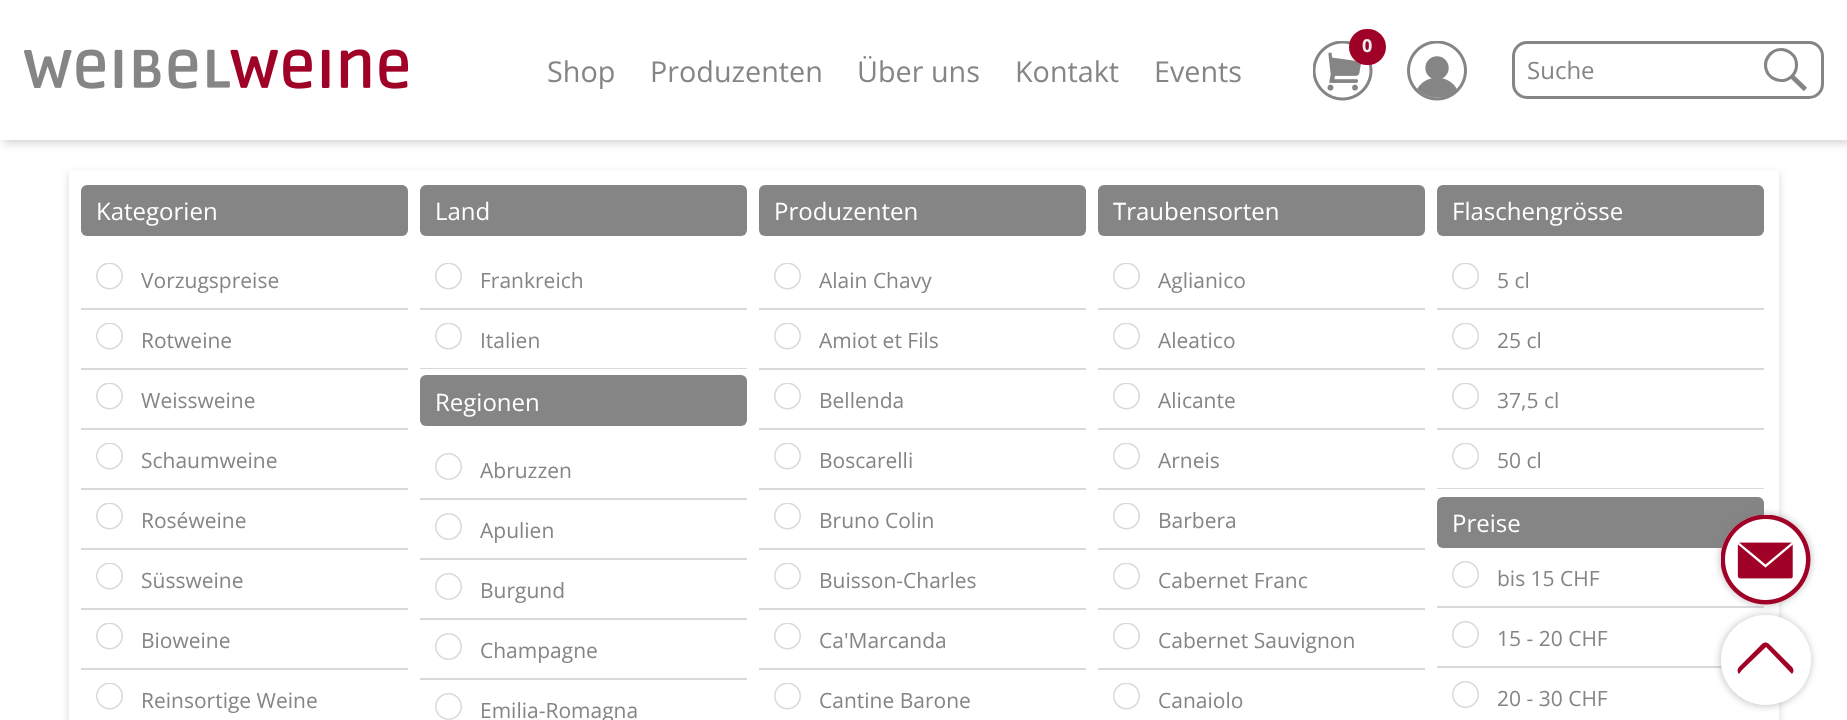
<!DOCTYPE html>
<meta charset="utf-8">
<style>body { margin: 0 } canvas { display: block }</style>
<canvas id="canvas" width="1847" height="720"></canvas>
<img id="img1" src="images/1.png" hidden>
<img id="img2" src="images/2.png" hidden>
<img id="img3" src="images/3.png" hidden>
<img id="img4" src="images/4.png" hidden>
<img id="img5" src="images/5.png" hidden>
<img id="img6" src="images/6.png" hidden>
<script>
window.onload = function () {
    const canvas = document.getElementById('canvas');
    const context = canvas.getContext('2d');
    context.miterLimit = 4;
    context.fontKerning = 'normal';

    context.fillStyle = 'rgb(255, 255, 255)';
    context.fillRect(0, 0, 1847, 720);
    context.save();
    context.beginPath();
    context.moveTo(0, 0);
    context.lineTo(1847, 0);
    context.lineTo(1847, 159);
    context.lineTo(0, 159);
    context.closePath();
    context.moveTo(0, 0);
    context.lineTo(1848, 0);
    context.lineTo(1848, 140);
    context.lineTo(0, 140);
    context.closePath();
    context.clip('evenodd');
    context.fillStyle = 'rgba(148, 148, 148, 0.43)';
    context.filter = 'blur(5px)';
    context.beginPath();
    context.rect(3, 3, 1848, 140);
    context.fill();
    context.filter = 'none';
    context.restore();
    context.drawImage(document.getElementById('img1'), 24, 49, 384, 40);
    context.drawImage(document.getElementById('img2'), 1313, 41, 60, 60);
    context.fillStyle = 'rgb(159, 1, 39)';
    context.beginPath();
    context.roundRect(1349, 29, 37, 36, 18);
    context.fill();
    context.drawImage(document.getElementById('img3'), 1407, 41, 60, 60);
    context.beginPath();
    context.roundRect(1513.5, 42.5, 309, 55, 13.5);
    context.strokeStyle = 'rgb(133, 133, 133)';
    context.lineWidth = 3;
    context.stroke();
    context.beginPath();
    context.moveTo(1796.5, 65);
    context.bezierCurveTo(1796.5, 68.5, 1795.5, 72, 1793, 75);
    context.bezierCurveTo(1784, 86, 1765.5, 79.5, 1765.5, 65);
    context.bezierCurveTo(1765.5, 61.5, 1767, 58, 1769, 55.5);
    context.bezierCurveTo(1778.5, 44, 1796.5, 50.5, 1796.5, 65);
    context.closePath();
    context.lineWidth = 3.1;
    context.stroke();
    context.beginPath();
    context.moveTo(1792.5, 77);
    context.lineTo(1805.5, 89.5);
    context.lineWidth = 4.7;
    context.stroke();
    context.save();
    context.beginPath();
    context.moveTo(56, 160);
    context.lineTo(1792, 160);
    context.lineTo(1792, 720);
    context.lineTo(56, 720);
    context.closePath();
    context.moveTo(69, 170);
    context.lineTo(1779, 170);
    context.lineTo(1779, 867);
    context.lineTo(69, 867);
    context.closePath();
    context.clip('evenodd');
    context.fillStyle = 'rgba(0, 0, 0, 0.15)';
    context.filter = 'blur(4px)';
    context.beginPath();
    context.rect(69, 173, 1710, 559);
    context.fill();
    context.filter = 'none';
    context.restore();
    context.fillStyle = 'rgb(133, 133, 133)';
    context.beginPath();
    context.roundRect(81, 185, 327, 51, 6);
    context.fill();
    context.fillStyle = 'rgb(217, 217, 217)';
    context.fillRect(81, 308, 327, 2);
    context.drawImage(document.getElementById('img4'), 96, 263, 27, 27);
    context.fillRect(81, 368, 327, 2);
    context.drawImage(document.getElementById('img4'), 96, 323, 27, 27);
    context.fillRect(81, 428, 327, 2);
    context.drawImage(document.getElementById('img4'), 96, 383, 27, 27);
    context.fillRect(81, 488, 327, 2);
    context.drawImage(document.getElementById('img4'), 96, 443, 27, 27);
    context.fillRect(81, 548, 327, 2);
    context.drawImage(document.getElementById('img4'), 96, 503, 27, 27);
    context.fillRect(81, 608, 327, 2);
    context.drawImage(document.getElementById('img4'), 96, 563, 27, 27);
    context.fillRect(81, 668, 327, 2);
    context.drawImage(document.getElementById('img4'), 96, 623, 27, 27);
    context.drawImage(document.getElementById('img4'), 96, 683, 27, 27);
    context.fillStyle = 'rgb(133, 133, 133)';
    context.beginPath();
    context.roundRect(420, 185, 327, 51, 6);
    context.fill();
    context.fillStyle = 'rgb(217, 217, 217)';
    context.fillRect(420, 308, 327, 2);
    context.drawImage(document.getElementById('img4'), 435, 263, 27, 27);
    context.fillRect(420, 368, 327, 1);
    context.drawImage(document.getElementById('img4'), 435, 323, 27, 27);
    context.fillStyle = 'rgb(133, 133, 133)';
    context.beginPath();
    context.roundRect(420, 375, 327, 51, 6);
    context.fill();
    context.fillStyle = 'rgb(217, 217, 217)';
    context.fillRect(420, 498, 327, 2);
    context.drawImage(document.getElementById('img5'), 435, 453, 27, 27);
    context.fillRect(420, 558, 327, 2);
    context.drawImage(document.getElementById('img5'), 435, 513, 27, 27);
    context.fillRect(420, 618, 327, 2);
    context.drawImage(document.getElementById('img5'), 435, 573, 27, 27);
    context.fillRect(420, 678, 327, 2);
    context.drawImage(document.getElementById('img5'), 435, 633, 27, 27);
    context.drawImage(document.getElementById('img5'), 435, 693, 27, 27);
    context.fillStyle = 'rgb(133, 133, 133)';
    context.beginPath();
    context.roundRect(759, 185, 327, 51, 6);
    context.fill();
    context.fillStyle = 'rgb(217, 217, 217)';
    context.fillRect(759, 308, 327, 2);
    context.drawImage(document.getElementById('img4'), 774, 263, 27, 27);
    context.fillRect(759, 368, 327, 2);
    context.drawImage(document.getElementById('img4'), 774, 323, 27, 27);
    context.fillRect(759, 428, 327, 2);
    context.drawImage(document.getElementById('img4'), 774, 383, 27, 27);
    context.fillRect(759, 488, 327, 2);
    context.drawImage(document.getElementById('img4'), 774, 443, 27, 27);
    context.fillRect(759, 548, 327, 2);
    context.drawImage(document.getElementById('img4'), 774, 503, 27, 27);
    context.fillRect(759, 608, 327, 2);
    context.drawImage(document.getElementById('img4'), 774, 563, 27, 27);
    context.fillRect(759, 668, 327, 2);
    context.drawImage(document.getElementById('img4'), 774, 623, 27, 27);
    context.drawImage(document.getElementById('img4'), 774, 683, 27, 27);
    context.fillStyle = 'rgb(133, 133, 133)';
    context.beginPath();
    context.roundRect(1098, 185, 327, 51, 6);
    context.fill();
    context.fillStyle = 'rgb(217, 217, 217)';
    context.fillRect(1098, 308, 327, 2);
    context.drawImage(document.getElementById('img4'), 1113, 263, 27, 27);
    context.fillRect(1098, 368, 327, 2);
    context.drawImage(document.getElementById('img4'), 1113, 323, 27, 27);
    context.fillRect(1098, 428, 327, 2);
    context.drawImage(document.getElementById('img4'), 1113, 383, 27, 27);
    context.fillRect(1098, 488, 327, 2);
    context.drawImage(document.getElementById('img4'), 1113, 443, 27, 27);
    context.fillRect(1098, 548, 327, 2);
    context.drawImage(document.getElementById('img4'), 1113, 503, 27, 27);
    context.fillRect(1098, 608, 327, 2);
    context.drawImage(document.getElementById('img4'), 1113, 563, 27, 27);
    context.fillRect(1098, 668, 327, 2);
    context.drawImage(document.getElementById('img4'), 1113, 623, 27, 27);
    context.drawImage(document.getElementById('img4'), 1113, 683, 27, 27);
    context.fillStyle = 'rgb(133, 133, 133)';
    context.beginPath();
    context.roundRect(1437, 185, 327, 51, 6);
    context.fill();
    context.fillStyle = 'rgb(217, 217, 217)';
    context.fillRect(1437, 308, 327, 2);
    context.drawImage(document.getElementById('img4'), 1452, 263, 27, 27);
    context.fillRect(1437, 368, 327, 2);
    context.drawImage(document.getElementById('img4'), 1452, 323, 27, 27);
    context.fillRect(1437, 428, 327, 2);
    context.drawImage(document.getElementById('img4'), 1452, 383, 27, 27);
    context.fillRect(1437, 488, 327, 1);
    context.drawImage(document.getElementById('img4'), 1452, 443, 27, 27);
    context.fillStyle = 'rgb(133, 133, 133)';
    context.beginPath();
    context.roundRect(1437, 497, 327, 51, 6);
    context.fill();
    context.fillStyle = 'rgb(217, 217, 217)';
    context.fillRect(1437, 606, 327, 2);
    context.drawImage(document.getElementById('img5'), 1452, 561, 27, 27);
    context.fillRect(1437, 666, 285, 2);
    context.drawImage(document.getElementById('img5'), 1452, 621, 27, 27);
    context.drawImage(document.getElementById('img5'), 1452, 681, 27, 27);
    context.fillStyle = 'rgba(123, 123, 123, 0.35)';
    context.filter = 'blur(3px)';
    context.beginPath();
    context.roundRect(1719, 513, 93, 93, 46.5);
    context.fill();
    context.filter = 'none';
    context.drawImage(document.getElementById('img6'), 1721, 515, 90, 90);
    context.filter = 'blur(3px)';
    context.beginPath();
    context.roundRect(1719, 614, 93, 93, 46.5);
    context.fill();
    context.filter = 'none';
    context.fillStyle = 'rgb(252, 252, 252)';
    context.beginPath();
    context.arc(1766, 660, 45, 0, 2 * Math.PI);
    context.fill();
    context.fillStyle = 'rgba(255, 255, 255, 0.8)';
    context.beginPath();
    context.arc(1766, 660, 45, 0, 2 * Math.PI);
    context.fill();
    context.fillStyle = 'rgb(161, 1, 39)';
    context.beginPath();
    context.moveTo(1769, 644);
    context.lineTo(1792, 667);
    context.bezierCurveTo(1794, 669, 1794, 672, 1792, 674);
    context.lineTo(1769, 697);
    context.bezierCurveTo(1767, 699, 1764, 699, 1762, 697);
    context.lineTo(1739, 674);
    context.bezierCurveTo(1737, 672, 1737, 669, 1739, 667);
    context.lineTo(1762, 644);
    context.bezierCurveTo(1764, 642, 1767, 642, 1769, 644);
    context.closePath();
    context.moveTo(1766, 647);
    context.lineTo(1792, 674);
    context.lineTo(1769, 697);
    context.bezierCurveTo(1767, 699, 1764, 699, 1762, 697);
    context.lineTo(1739, 674);
    context.lineTo(1742, 670);
    context.closePath();
    context.fill('evenodd');
    context.font = 'bold 18px Open Sans';
    context.fillStyle = 'rgb(238, 238, 238)';
    context.fillText('0', 1362, 52);
    context.font = '28.75px Open Sans';
    context.fillStyle = 'rgb(133, 133, 133)';
    context.fillText('Shop', 547, 82);
    context.fillText('Produzenten', 650, 82);
    context.fillText('Über uns', 857, 82);
    context.fillText('Kontakt', 1015, 82);
    context.fillText('Events', 1154, 82);
    context.font = '24px Open Sans';
    context.fillText('Suche', 1527, 79);
    context.fillStyle = 'rgb(255, 255, 255)';
    context.fillText('Kategorien', 96, 220);
    context.font = '21px Open Sans';
    context.fillStyle = 'rgb(133, 133, 133)';
    context.fillText('Vorzugspreise', 141, 288);
    context.fillText('Rotweine', 141, 348);
    context.fillText('Weissweine', 141, 408);
    context.fillText('Schaumweine', 141, 468);
    context.fillText('Roséweine', 141, 528);
    context.fillText('Süssweine', 141, 588);
    context.fillText('Bioweine', 141, 648);
    context.fillText('Reinsortige Weine', 141, 708);
    context.font = '24px Open Sans';
    context.fillStyle = 'rgb(255, 255, 255)';
    context.fillText('Land', 435, 220);
    context.font = '21px Open Sans';
    context.fillStyle = 'rgb(133, 133, 133)';
    context.fillText('Frankreich', 480, 288);
    context.fillText('Italien', 480, 348);
    context.font = '24px Open Sans';
    context.fillStyle = 'rgb(255, 255, 255)';
    context.fillText('Regionen', 435, 411);
    context.font = '21px Open Sans';
    context.fillStyle = 'rgb(133, 133, 133)';
    context.fillText('Abruzzen', 480, 478);
    context.fillText('Apulien', 480, 538);
    context.fillText('Burgund', 480, 598);
    context.fillText('Champagne', 480, 658);
    context.fillText('Emilia-Romagna', 480, 718);
    context.font = '24px Open Sans';
    context.fillStyle = 'rgb(255, 255, 255)';
    context.fillText('Produzenten', 774, 220);
    context.font = '21px Open Sans';
    context.fillStyle = 'rgb(133, 133, 133)';
    context.fillText('Alain Chavy', 819, 288);
    context.fillText('Amiot et Fils', 819, 348);
    context.fillText('Bellenda', 819, 408);
    context.fillText('Boscarelli', 819, 468);
    context.fillText('Bruno Colin', 819, 528);
    context.fillText('Buisson-Charles', 819, 588);
    context.fillText('Ca\'Marcanda', 819, 648);
    context.fillText('Cantine Barone', 819, 708);
    context.font = '24px Open Sans';
    context.fillStyle = 'rgb(255, 255, 255)';
    context.fillText('Traubensorten', 1113, 220);
    context.font = '21px Open Sans';
    context.fillStyle = 'rgb(133, 133, 133)';
    context.fillText('Aglianico', 1158, 288);
    context.fillText('Aleatico', 1158, 348);
    context.fillText('Alicante', 1158, 408);
    context.fillText('Arneis', 1158, 468);
    context.fillText('Barbera', 1158, 528);
    context.fillText('Cabernet Franc', 1158, 588);
    context.fillText('Cabernet Sauvignon', 1158, 648);
    context.fillText('Canaiolo', 1158, 708);
    context.font = '24px Open Sans';
    context.fillStyle = 'rgb(255, 255, 255)';
    context.fillText('Flaschengrösse', 1452, 220);
    context.font = '21px Open Sans';
    context.fillStyle = 'rgb(133, 133, 133)';
    context.fillText('5 cl', 1497, 288);
    context.fillText('25 cl', 1497, 348);
    context.fillText('37,5 cl', 1497, 408);
    context.fillText('50 cl', 1497, 468);
    context.font = '24px Open Sans';
    context.fillStyle = 'rgb(255, 255, 255)';
    context.fillText('Preise', 1452, 532);
    context.font = '21px Open Sans';
    context.fillStyle = 'rgb(133, 133, 133)';
    context.fillText('bis 15 CHF', 1497, 586);
    context.fillText('15 - 20 CHF', 1497, 646);
    context.fillText('20 - 30 CHF', 1497, 706);
};
</script>
